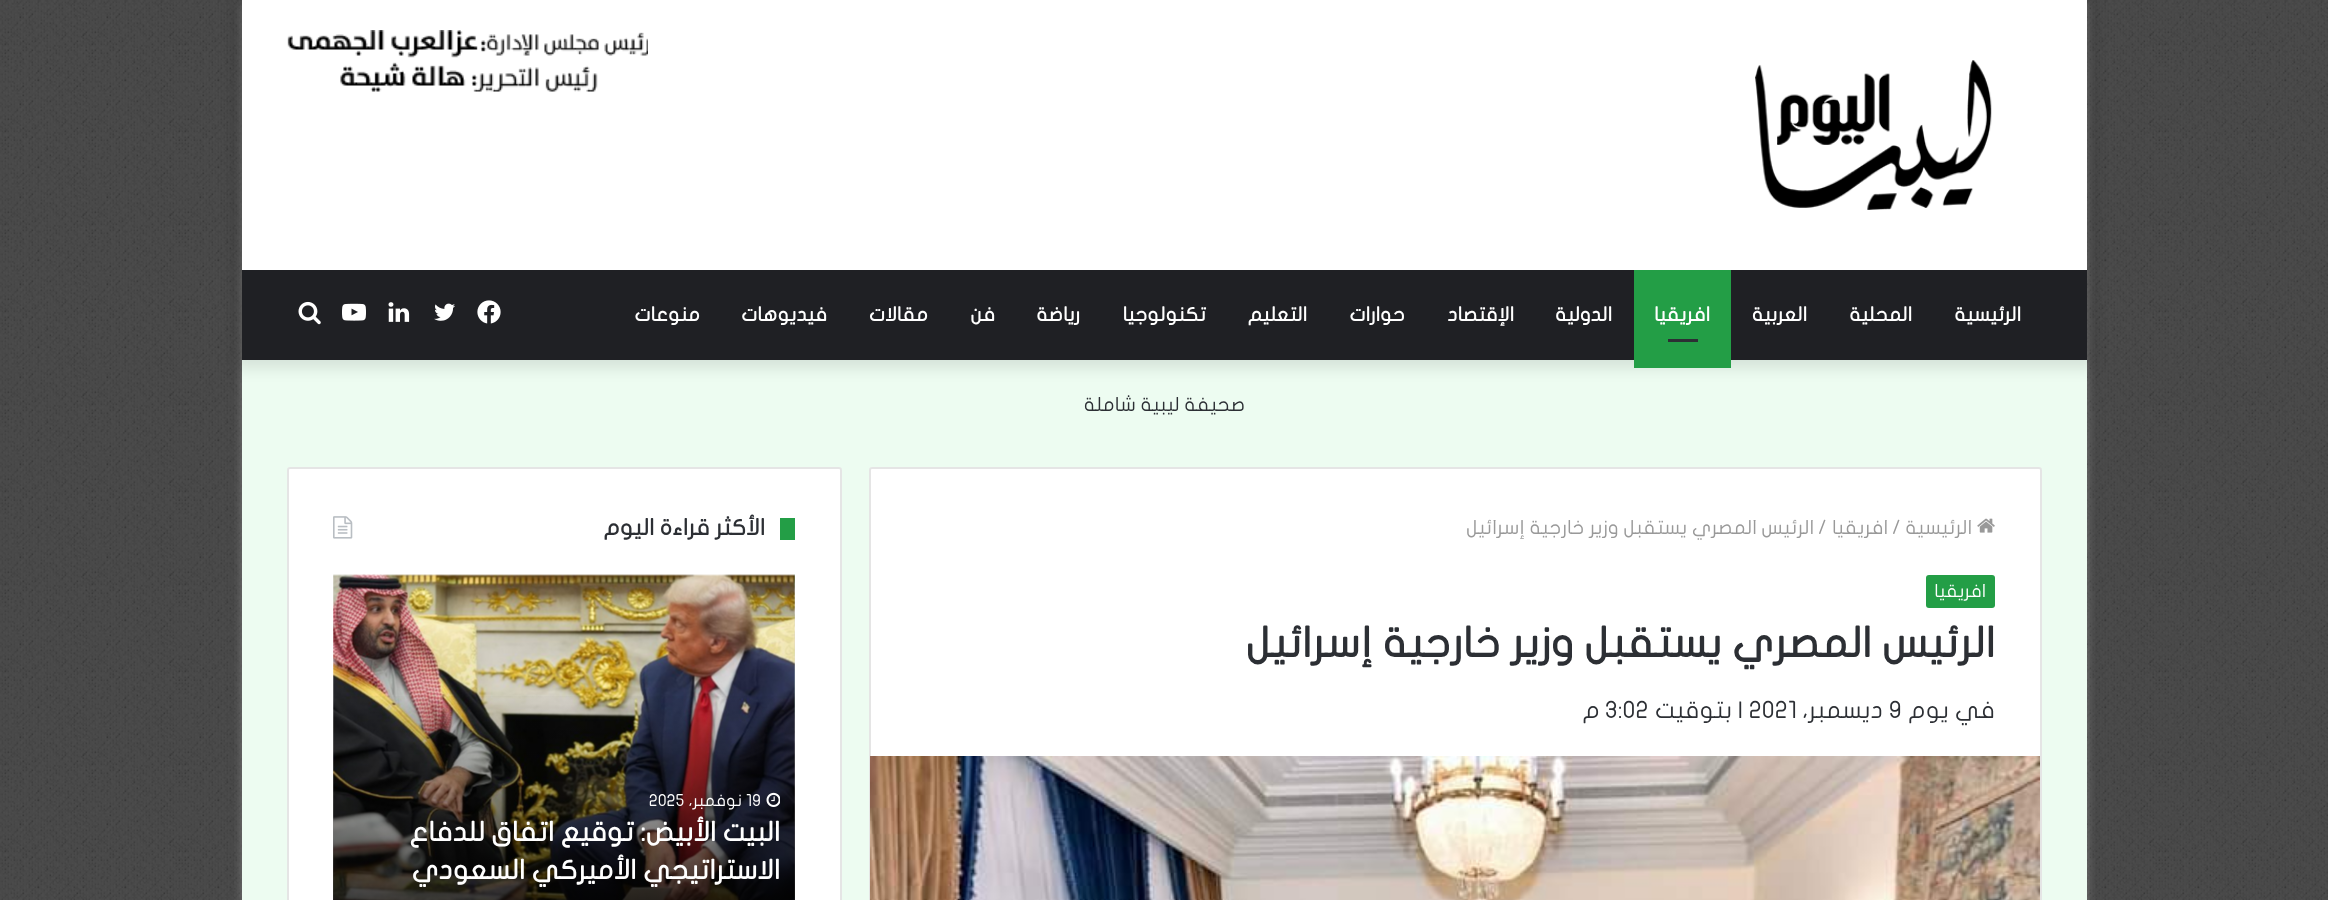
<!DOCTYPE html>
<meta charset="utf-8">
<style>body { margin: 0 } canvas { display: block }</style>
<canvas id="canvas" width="2328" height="900"></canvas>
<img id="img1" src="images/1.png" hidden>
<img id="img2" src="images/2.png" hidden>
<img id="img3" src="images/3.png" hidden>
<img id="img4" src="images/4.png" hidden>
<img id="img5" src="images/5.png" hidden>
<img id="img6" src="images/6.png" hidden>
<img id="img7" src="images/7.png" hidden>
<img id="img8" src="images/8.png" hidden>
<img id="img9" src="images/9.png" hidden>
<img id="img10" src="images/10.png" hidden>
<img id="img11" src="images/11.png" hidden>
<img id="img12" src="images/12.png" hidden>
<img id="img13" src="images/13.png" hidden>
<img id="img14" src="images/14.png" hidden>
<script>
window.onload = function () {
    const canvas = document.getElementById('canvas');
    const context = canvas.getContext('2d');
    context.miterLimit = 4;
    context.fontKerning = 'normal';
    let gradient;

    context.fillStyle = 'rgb(44, 44, 44)';
    context.fillRect(0, 0, 2328, 900);
    context.drawImage(document.getElementById('img1'), 0, 0, 2328, 900);
    context.fillStyle = 'rgba(171, 171, 171, 0.5)';
    context.filter = 'blur(5px)';
    context.beginPath();
    context.rect(242, 2, 1845, 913);
    context.fill();
    context.filter = 'none';
    context.fillStyle = 'rgb(237, 252, 241)';
    context.fillRect(242, 360, 1845, 540);
    context.fillStyle = 'rgba(0, 0, 0, 0.1)';
    context.filter = 'blur(7.5px)';
    context.beginPath();
    context.rect(234, -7, 1860, 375);
    context.fill();
    context.filter = 'none';
    context.fillStyle = 'rgb(255, 255, 255)';
    context.fillRect(242, 0, 1845, 270);
    context.drawImage(document.getElementById('img2'), 1755, 60, 237, 150);
    context.drawImage(document.getElementById('img3'), 287, 30, 361, 62);
    context.fillStyle = 'rgb(31, 32, 36)';
    context.fillRect(242, 270, 1845, 90);
    context.fillStyle = 'rgb(35, 158, 70)';
    context.fillRect(1634, 270, 97, 98);
    context.fillStyle = 'rgb(44, 47, 52)';
    context.fillRect(1668, 339, 30, 3);
    context.drawImage(document.getElementById('img4'), 477, 300, 24, 24);
    context.drawImage(document.getElementById('img5'), 434, 303, 21, 18);
    context.drawImage(document.getElementById('img6'), 388, 302, 22, 20);
    context.drawImage(document.getElementById('img7'), 342, 303, 24, 18);
    context.drawImage(document.getElementById('img8'), 298, 301, 23, 24);
    context.fillStyle = 'rgb(255, 255, 255)';
    context.beginPath();
    context.roundRect(869, 467, 1173, 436, 3);
    context.fill();
    context.beginPath();
    context.roundRect(870, 468, 1171, 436, 2);
    context.strokeStyle = 'rgba(0, 0, 0, 0.1)';
    context.lineWidth = 2;
    context.stroke();
    context.drawImage(document.getElementById('img9'), 1977, 518, 18, 15);
    context.fillStyle = 'rgb(35, 158, 70)';
    context.beginPath();
    context.roundRect(1926, 575, 69, 33, 3);
    context.fill();
    context.drawImage(document.getElementById('img10'), 870, 756, 1170, 144);
    context.fillStyle = 'rgb(255, 255, 255)';
    context.beginPath();
    context.roundRect(287, 467, 555, 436, 3);
    context.fill();
    context.beginPath();
    context.roundRect(288, 468, 553, 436, 2);
    context.stroke();
    context.fillStyle = 'rgb(35, 158, 70)';
    context.fillRect(780, 518, 15, 22);
    context.drawImage(document.getElementById('img11'), 333, 516, 20, 23);
    context.drawImage(document.getElementById('img12'), 794, 574, 1, 326);
    context.drawImage(document.getElementById('img13'), 333, 574, 462, 326);
    gradient = context.createLinearGradient(564, 690, 564, 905);
    gradient.addColorStop(0, 'rgba(0, 0, 0, 0)');
    gradient.addColorStop(1, 'rgba(0, 0, 0, 0.75)');
    context.fillStyle = gradient;
    context.fillRect(333, 696, 462, 204);
    context.drawImage(document.getElementById('img14'), 766, 792, 14, 15);
    context.direction = 'rtl';
    context.font = 'bold 19.5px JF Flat';
    context.fillStyle = 'rgb(255, 255, 255)';
    context.fillText('الرئيسية', 2021, 321);
    context.fillText('المحلية', 1912, 321);
    context.fillText('العربية', 1807, 321);
    context.fillText('افريقيا', 1710, 321);
    context.fillText('الدولية', 1612, 321);
    context.fillText('الإقتصاد', 1514, 321);
    context.fillText('حوارات', 1405, 321);
    context.fillText('التعليم', 1307, 321);
    context.fillText('تكنولوجيا', 1206, 321);
    context.fillText('رياضة', 1080, 321);
    context.fillText('فن', 995, 321);
    context.fillText('مقالات', 928, 321);
    context.fillText('فيديوهات', 827, 321);
    context.fillText('منوعات', 700, 321);
    context.font = '19.5px JF Flat';
    context.fillStyle = 'rgb(44, 47, 52)';
    context.fillText('صحيفة ليبية شاملة', 1245, 411);
    context.fillStyle = 'rgb(153, 153, 153)';
    context.fillText('الرئيسية', 1972, 534);
    context.direction = 'ltr';
    context.fillText('/', 1892, 534);
    context.direction = 'rtl';
    context.fillText('افريقيا', 1888, 534);
    context.direction = 'ltr';
    context.fillText('/', 1818, 534);
    context.direction = 'rtl';
    context.fillText('الرئيس المصري يستقبل وزير خارجية إسرائيل', 1814, 534);
    context.font = '18px JF Flat';
    context.fillStyle = 'rgb(255, 255, 255)';
    context.fillText('افريقيا', 1986, 597);
    context.font = 'bold 42px JF Flat';
    context.fillStyle = 'rgb(44, 47, 52)';
    context.fillText('الرئيس المصري يستقبل وزير خارجية إسرائيل', 1995, 657);
    context.font = '24px JF Flat';
    context.fillText('في يوم', 1995, 718);
    context.direction = 'ltr';
    context.fillText('9', 1889, 718);
    context.direction = 'rtl';
    context.fillText('ديسمبر،', 1883, 718);
    context.direction = 'ltr';
    context.fillText('| 2021', 1738, 718);
    context.direction = 'rtl';
    context.fillText('بتوقيت', 1732, 718);
    context.direction = 'ltr';
    context.fillText('3:02', 1605, 718);
    context.direction = 'rtl';
    context.fillText('م', 1600, 718);
    context.font = 'bold 22.5px JF Flat';
    context.fillText('الأكثر قراءة اليوم', 765, 535);
    context.direction = 'ltr';
    context.font = '16.5px JF Flat';
    context.fillStyle = 'rgb(255, 255, 255)';
    context.fillText('19', 746, 806);
    context.direction = 'rtl';
    context.fillText('نوفمبر،', 742, 806);
    context.direction = 'ltr';
    context.fillText('2025', 649, 806);
    context.direction = 'rtl';
    context.font = 'bold 27px JF Flat';
    context.fillText('البيت الأبيض: توقيع اتفاق للدفاع', 780, 841);
    context.fillText('الاستراتيجي الأميركي السعودي', 780, 879);
};
</script>
